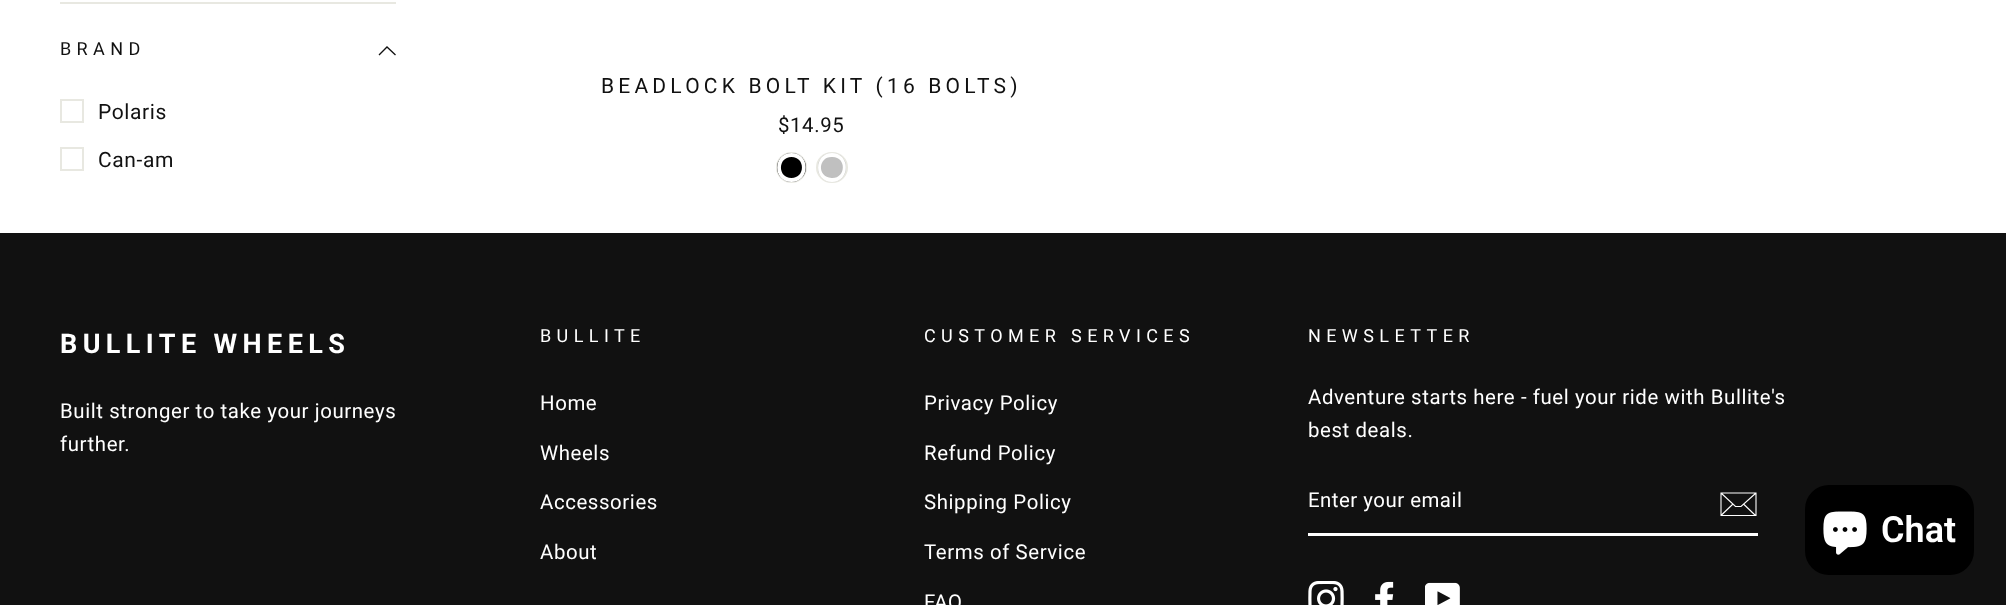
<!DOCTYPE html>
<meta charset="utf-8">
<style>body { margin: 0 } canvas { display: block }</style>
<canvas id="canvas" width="2006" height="605"></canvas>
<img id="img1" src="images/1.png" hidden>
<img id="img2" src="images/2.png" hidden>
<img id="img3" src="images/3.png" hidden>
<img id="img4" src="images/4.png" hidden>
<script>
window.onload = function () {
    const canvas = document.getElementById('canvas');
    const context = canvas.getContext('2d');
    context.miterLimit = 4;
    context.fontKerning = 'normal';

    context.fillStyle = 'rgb(255, 255, 255)';
    context.fillRect(0, 0, 2006, 605);
    context.fillStyle = 'rgb(232, 232, 225)';
    context.fillRect(60, 2, 336, 2);
    context.beginPath();
    context.moveTo(379, 55);
    context.lineTo(387, 47);
    context.lineTo(395.5, 55);
    context.strokeStyle = 'rgb(17, 17, 17)';
    context.lineWidth = 1.3;
    context.stroke();
    context.strokeStyle = 'rgb(232, 232, 225)';
    context.lineWidth = 2;
    context.strokeRect(61, 100, 22, 22);
    context.strokeRect(61, 148, 22, 22);
    context.beginPath();
    context.arc(791.5, 167.5, 14.5, 0, 2 * Math.PI);
    context.stroke();
    context.fillStyle = 'rgb(0, 0, 0)';
    context.beginPath();
    context.arc(791.5, 167.5, 14.5, 0, 2 * Math.PI);
    context.fill();
    context.fillStyle = 'rgb(255, 255, 255)';
    context.beginPath();
    context.moveTo(791.5, 153);
    context.bezierCurveTo(772.5, 153, 772.5, 182, 791.5, 182);
    context.bezierCurveTo(810.5, 182, 810.5, 153, 791.5, 153);
    context.closePath();
    context.moveTo(791.5, 157);
    context.bezierCurveTo(777.5, 157, 777.5, 178, 791.5, 178);
    context.bezierCurveTo(805.5, 178, 805.5, 157, 791.5, 157);
    context.closePath();
    context.fill('evenodd');
    context.beginPath();
    context.roundRect(817, 153, 30, 29, 14.5);
    context.stroke();
    context.fillStyle = 'rgb(192, 192, 192)';
    context.beginPath();
    context.roundRect(818, 153, 28, 29, 14);
    context.fill();
    context.fillStyle = 'rgb(255, 255, 255)';
    context.beginPath();
    context.moveTo(832, 153);
    context.bezierCurveTo(813.5, 153, 813.5, 182, 832, 182);
    context.bezierCurveTo(850.5, 182, 850.5, 153, 832, 153);
    context.closePath();
    context.moveTo(831.5, 157);
    context.bezierCurveTo(818, 157, 817, 177, 831.5, 178);
    context.bezierCurveTo(846, 179, 847, 157, 832.5, 157);
    context.closePath();
    context.fill('evenodd');
    context.fillStyle = 'rgb(17, 17, 17)';
    context.fillRect(0, 233, 2006, 372);
    context.fillStyle = 'rgb(255, 255, 255)';
    context.fillRect(1308, 533, 450, 3);
    context.beginPath();
    context.moveTo(1756, 515.5);
    context.lineTo(1721, 515.5);
    context.lineTo(1721, 493);
    context.lineTo(1756, 493);
    context.closePath();
    context.moveTo(1721, 493);
    context.lineTo(1735.5, 506.5);
    context.lineTo(1741, 506.5);
    context.lineTo(1756, 493);
    context.moveTo(1733, 504);
    context.lineTo(1721.5, 515);
    context.moveTo(1755.5, 515.5);
    context.lineTo(1743.5, 504);
    context.strokeStyle = 'rgb(255, 255, 255)';
    context.lineWidth = 1.1;
    context.stroke();
    context.drawImage(document.getElementById('img1'), 1308, 581, 36, 24);
    context.drawImage(document.getElementById('img2'), 1375, 581, 19, 24);
    context.drawImage(document.getElementById('img3'), 1425, 582, 35, 23);
    context.fillStyle = 'rgb(0, 0, 0)';
    context.beginPath();
    context.roundRect(1805, 485, 169, 90, 24);
    context.fill();
    context.drawImage(document.getElementById('img4'), 1823, 511, 44, 44);
    context.letterSpacing = '5.4px';
    context.font = '18px Roboto';
    context.fillStyle = 'rgb(17, 17, 17)';
    context.fillText('BRAND', 60, 55);
    context.letterSpacing = '0.6px';
    context.font = '21px Roboto';
    context.fillText('Polaris', 98, 119);
    context.fillText('Can-am', 98, 167);
    context.letterSpacing = '4.2px';
    context.fillText('BEADLOCK BOLT KIT (16 BOLTS)', 601, 93);
    context.letterSpacing = '0.6px';
    context.font = '20.4px Roboto';
    context.fillText('$14.95', 778, 132);
    context.letterSpacing = '5.4px';
    context.font = 'bold 27px Roboto';
    context.fillStyle = 'rgb(255, 255, 255)';
    context.fillText('BULLITE WHEELS', 60, 353);
    context.letterSpacing = '0.6px';
    context.font = '20.4px Roboto';
    context.fillText('Built stronger to take your journeys', 60, 418);
    context.fillText('further.', 60, 451);
    context.letterSpacing = '5.4px';
    context.font = '18px Roboto';
    context.fillText('BULLITE', 540, 342);
    context.letterSpacing = '0.6px';
    context.font = '20.4px Roboto';
    context.fillText('Home', 540, 410);
    context.fillText('Wheels', 540, 460);
    context.fillText('Accessories', 540, 509);
    context.fillText('About', 540, 559);
    context.letterSpacing = '5.4px';
    context.font = '18px Roboto';
    context.fillText('CUSTOMER SERVICES', 924, 342);
    context.letterSpacing = '0.6px';
    context.font = '20.4px Roboto';
    context.fillText('Privacy Policy', 924, 410);
    context.fillText('Refund Policy', 924, 460);
    context.fillText('Shipping Policy', 924, 509);
    context.fillText('Terms of Service', 924, 559);
    context.fillText('FAQ', 924, 609);
    context.letterSpacing = '5.4px';
    context.font = '18px Roboto';
    context.fillText('NEWSLETTER', 1308, 342);
    context.letterSpacing = '0.6px';
    context.font = '20.4px Roboto';
    context.fillText('Adventure starts here - fuel your ride with Bullite\'s', 1308, 404);
    context.fillText('best deals.', 1308, 437);
    context.letterSpacing = '0.5px';
    context.fillText('Enter your email', 1308, 507);
    context.letterSpacing = '0px';
    context.font = '600 36px Roboto';
    context.fillText('Chat', 1881, 542);
};
</script>
